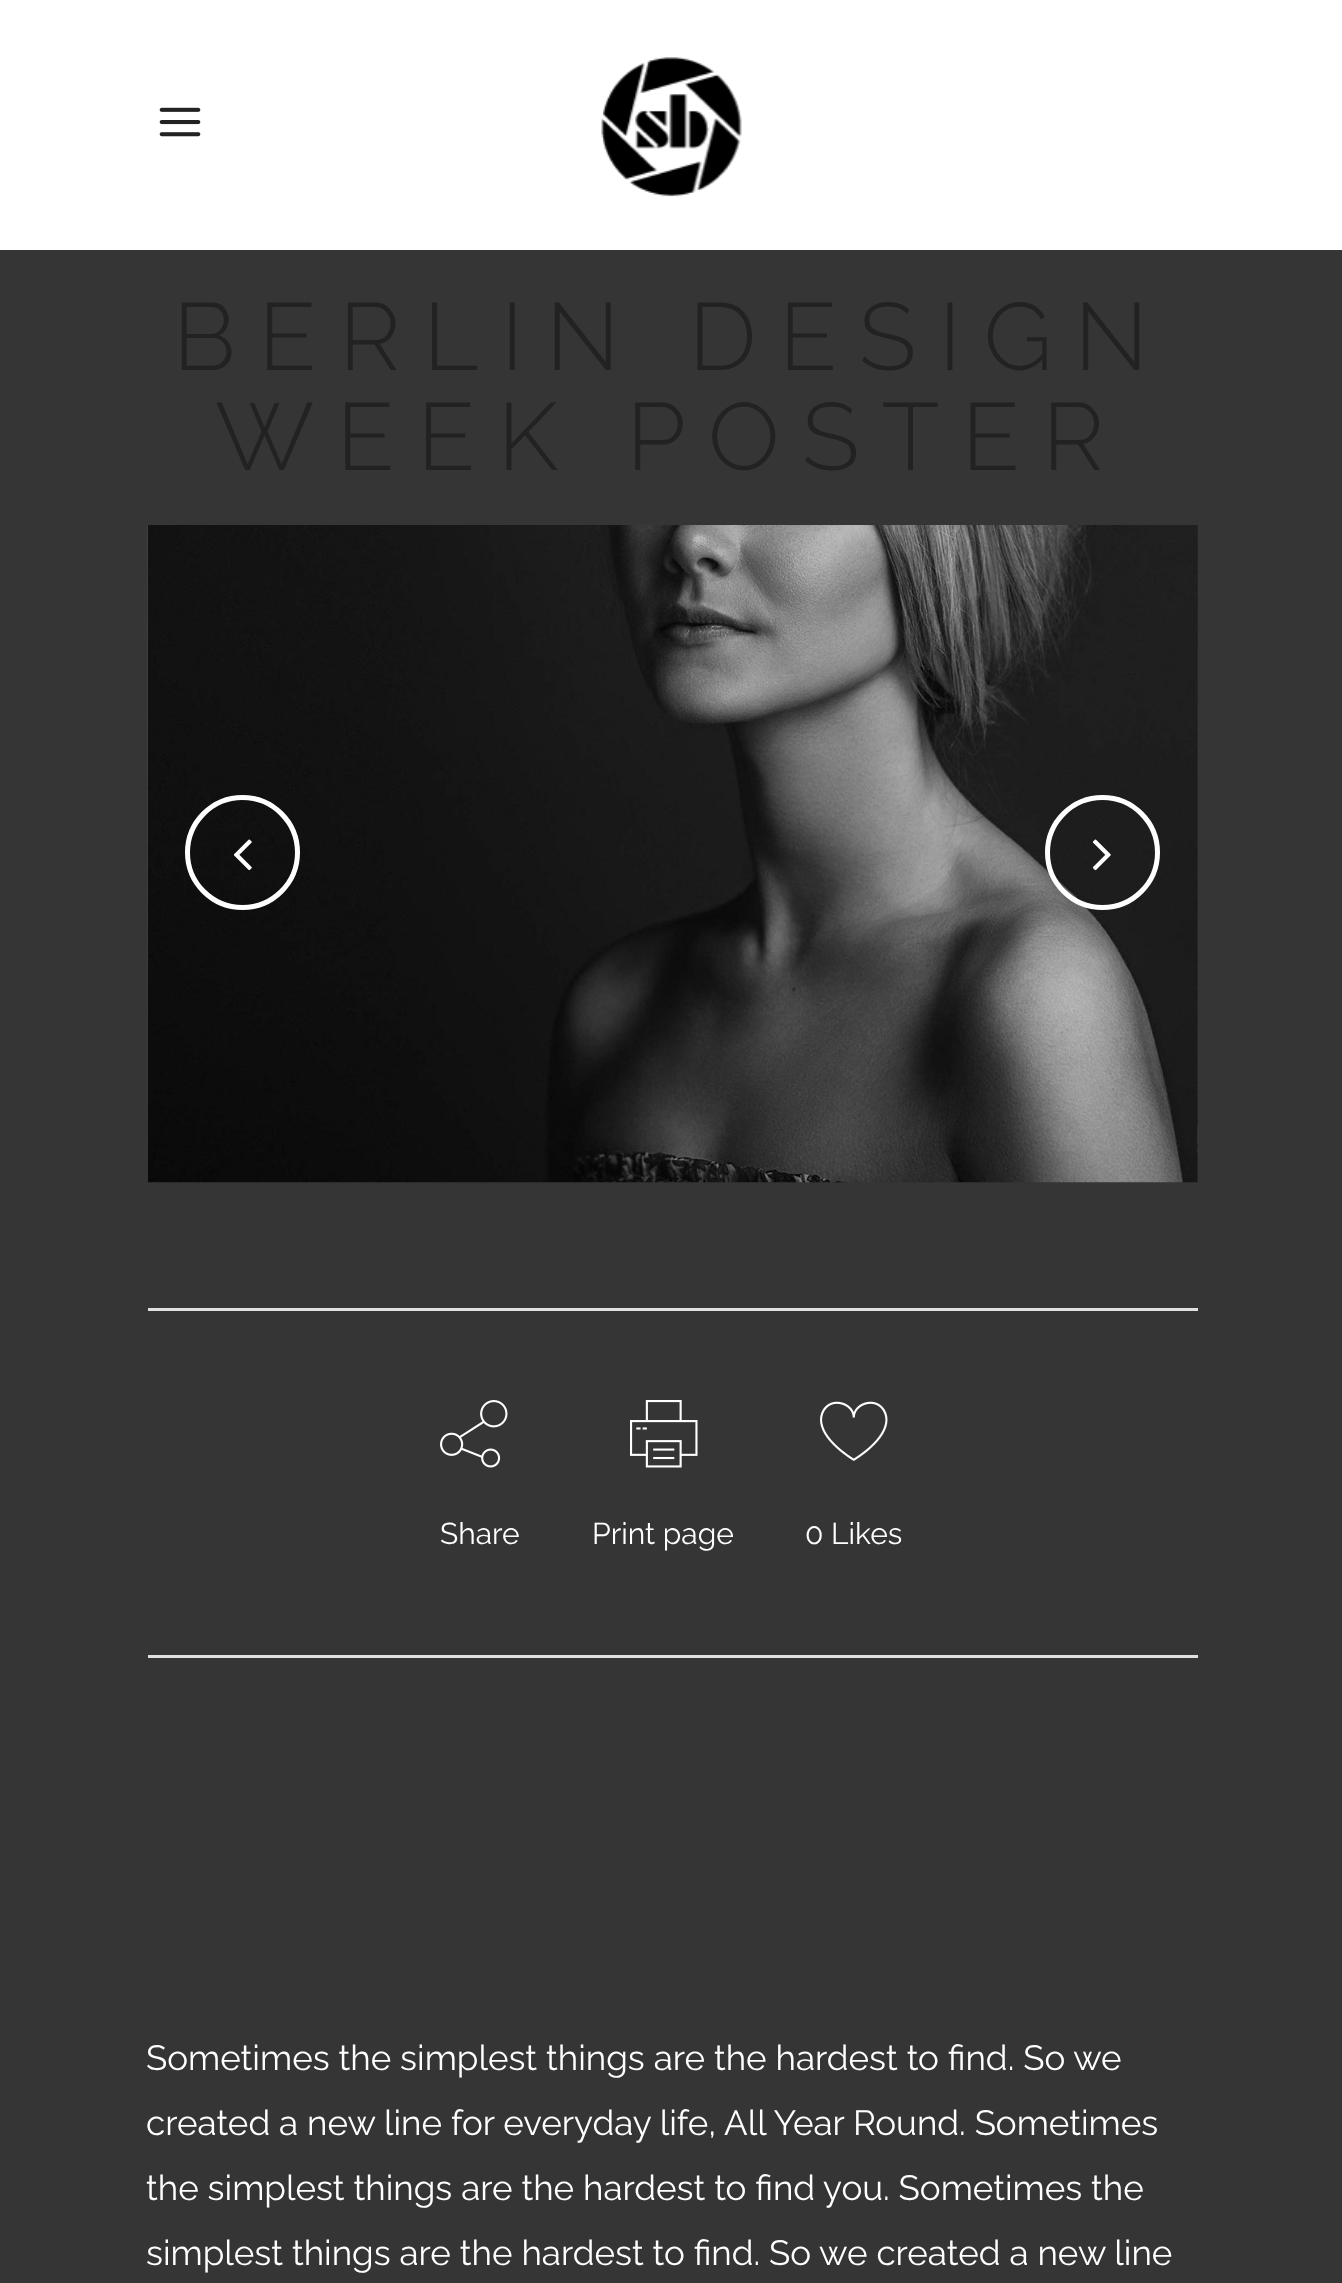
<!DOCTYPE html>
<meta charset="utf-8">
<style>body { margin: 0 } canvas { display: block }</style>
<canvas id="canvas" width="1342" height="2283"></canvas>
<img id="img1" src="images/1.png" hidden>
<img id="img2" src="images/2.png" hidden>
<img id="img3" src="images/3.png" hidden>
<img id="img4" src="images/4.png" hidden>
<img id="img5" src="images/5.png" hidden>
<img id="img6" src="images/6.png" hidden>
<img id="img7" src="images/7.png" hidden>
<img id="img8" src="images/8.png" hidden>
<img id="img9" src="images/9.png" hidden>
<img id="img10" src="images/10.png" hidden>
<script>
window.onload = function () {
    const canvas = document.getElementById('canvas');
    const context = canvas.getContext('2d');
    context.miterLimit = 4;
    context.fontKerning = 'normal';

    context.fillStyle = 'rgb(53, 53, 53)';
    context.fillRect(0, 0, 1342, 2283);
    context.fillStyle = 'rgb(255, 255, 255)';
    context.fillRect(0, 0, 1342, 250);
    context.drawImage(document.getElementById('img1'), 159, 107, 42, 30);
    context.drawImage(document.getElementById('img2'), 601, 57, 141, 140);
    context.drawImage(document.getElementById('img3'), 147, 525, 1, 658);
    context.drawImage(document.getElementById('img4'), 147, 525, 1051, 658);
    context.drawImage(document.getElementById('img5'), 1197, 525, 1, 657);
    context.beginPath();
    context.arc(242.5, 852.5, 55, 0, 2 * Math.PI);
    context.strokeStyle = 'rgb(255, 255, 255)';
    context.lineWidth = 5;
    context.stroke();
    context.drawImage(document.getElementById('img6'), 233, 839, 19, 32);
    context.beginPath();
    context.arc(1102.5, 852.5, 55, 0, 2 * Math.PI);
    context.stroke();
    context.drawImage(document.getElementById('img7'), 1092, 839, 19, 32);
    context.fillStyle = 'rgb(224, 224, 224)';
    context.fillRect(148, 1308, 1050, 3);
    context.fillRect(148, 1655, 1050, 3);
    context.drawImage(document.getElementById('img8'), 440, 1400, 68, 68);
    context.drawImage(document.getElementById('img9'), 630, 1400, 68, 68);
    context.drawImage(document.getElementById('img10'), 820, 1401, 68, 60);
    context.letterSpacing = '22.5px';
    context.font = '300 95px Raleway';
    context.fillStyle = 'rgb(34, 34, 34)';
    context.fillText('BERLIN DESIGN', 173, 370);
    context.fillText('WEEK POSTER', 215, 470);
    context.letterSpacing = '0px';
    context.font = '30px Raleway';
    context.fillStyle = 'rgb(255, 255, 255)';
    context.fillText('Share', 440, 1544);
    context.fillText('Print page', 592, 1544);
    context.fillText('0 Likes', 805, 1544);
    context.font = '35px Raleway';
    context.fillText('Sometimes the simplest things are the hardest to find. So we', 146, 2070);
    context.fillText('created a new line for everyday life, All Year Round. Sometimes', 146, 2135);
    context.fillText('the simplest things are the hardest to find you. Sometimes the', 146, 2200);
    context.fillText('simplest things are the hardest to find. So we created a new line', 146, 2265);
};
</script>
